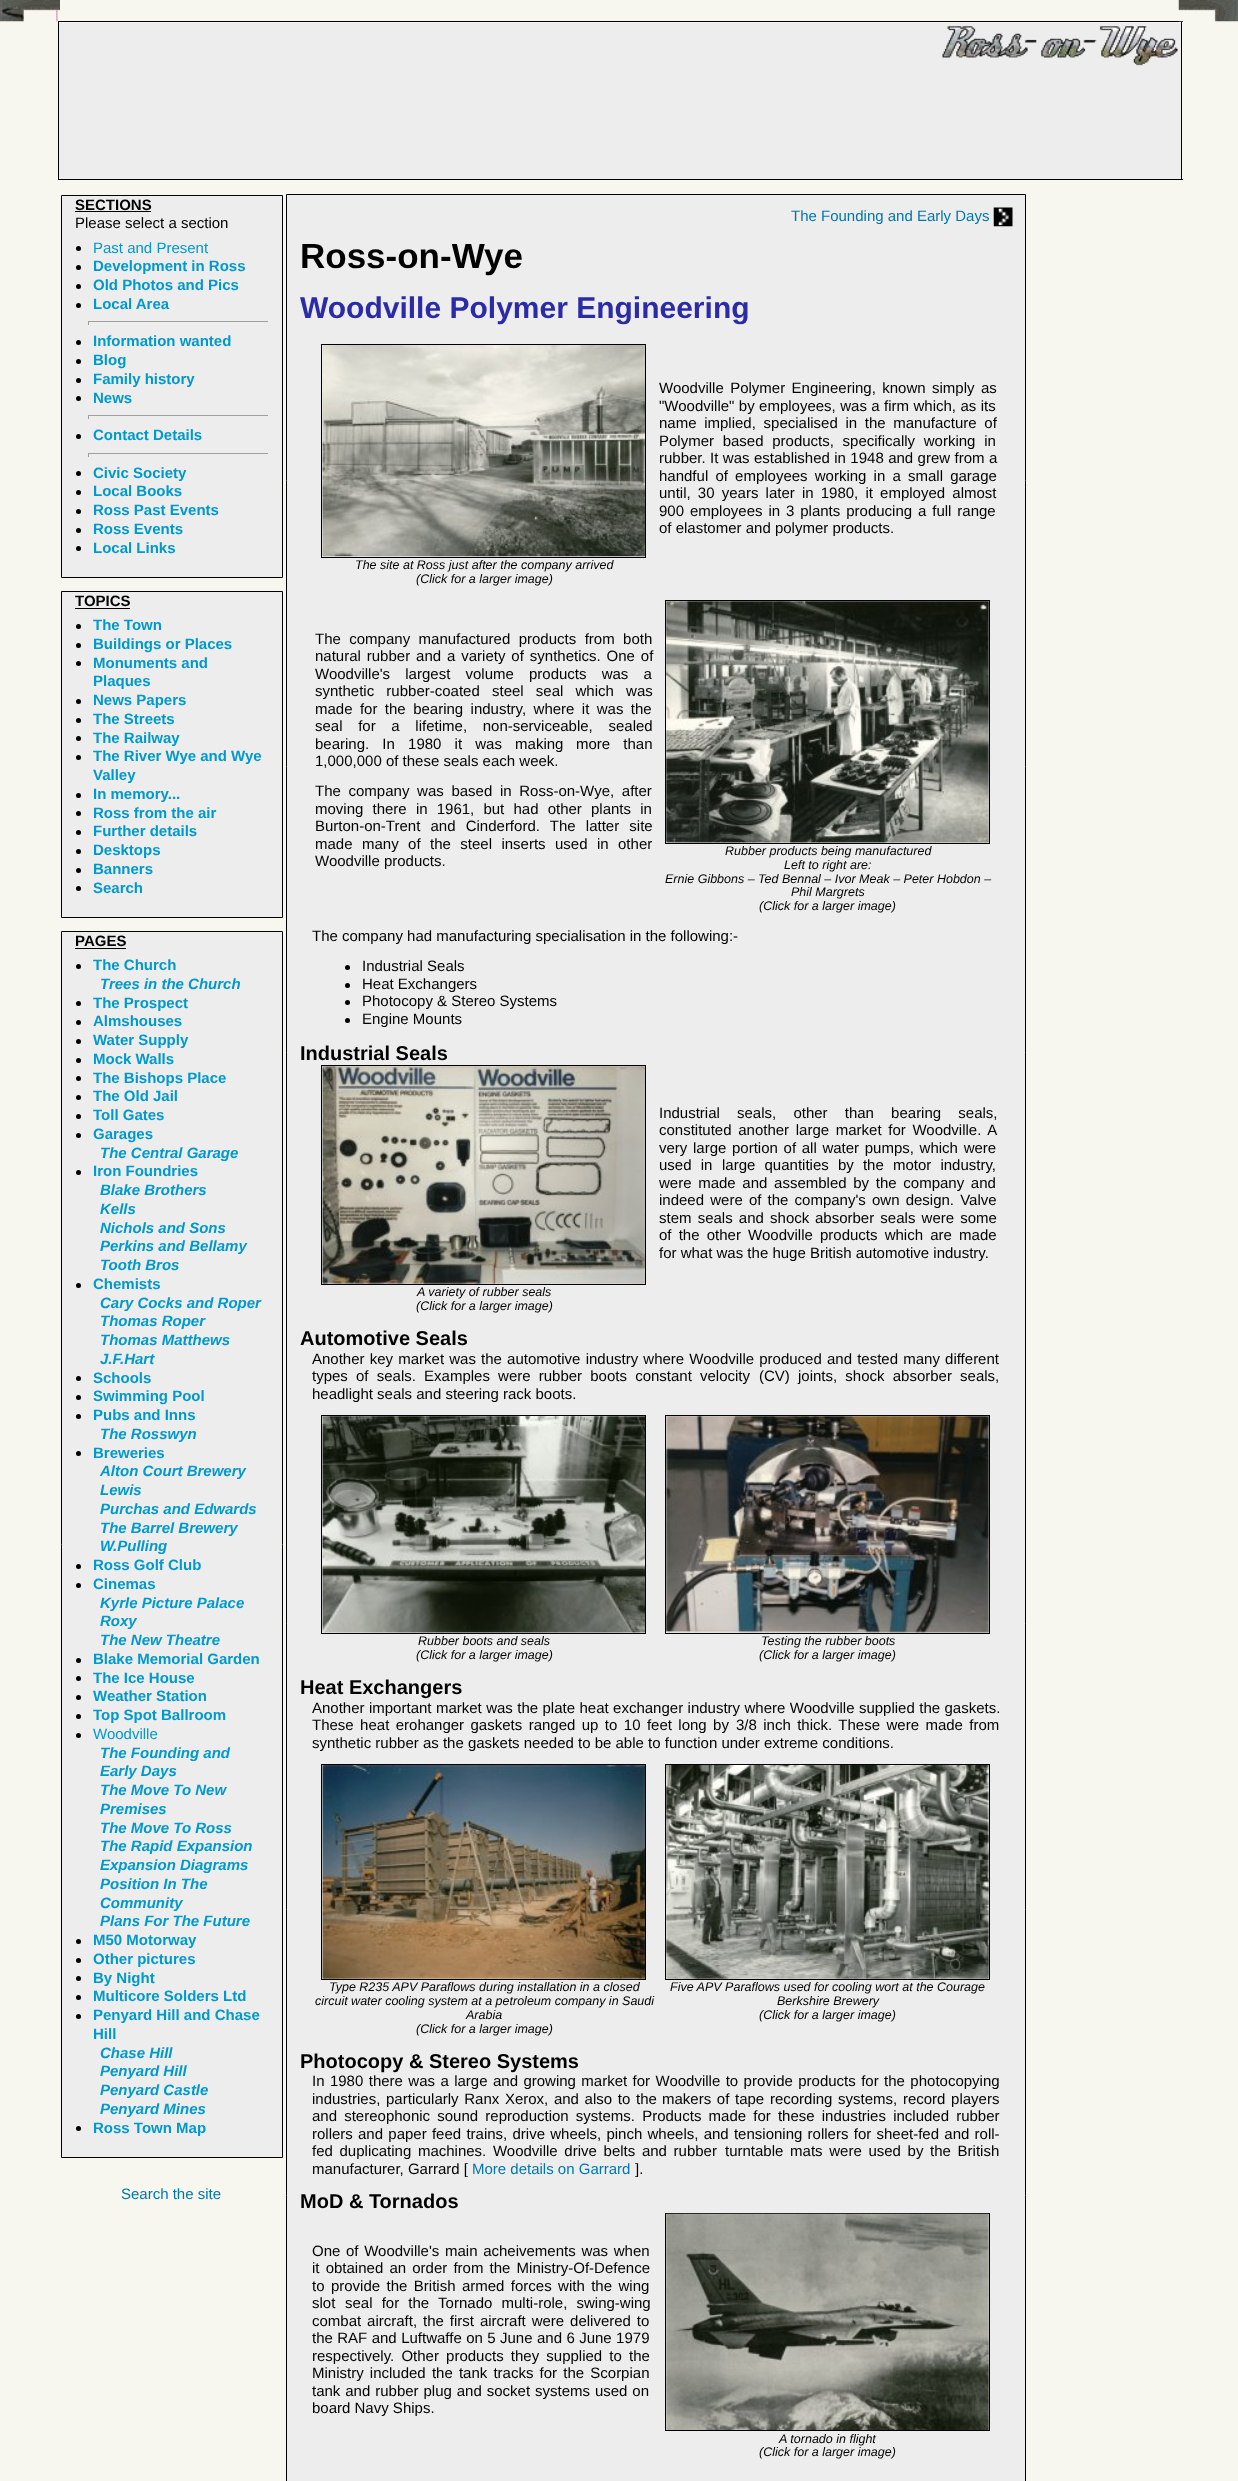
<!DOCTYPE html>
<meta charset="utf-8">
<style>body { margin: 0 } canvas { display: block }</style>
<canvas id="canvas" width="1238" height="2481"></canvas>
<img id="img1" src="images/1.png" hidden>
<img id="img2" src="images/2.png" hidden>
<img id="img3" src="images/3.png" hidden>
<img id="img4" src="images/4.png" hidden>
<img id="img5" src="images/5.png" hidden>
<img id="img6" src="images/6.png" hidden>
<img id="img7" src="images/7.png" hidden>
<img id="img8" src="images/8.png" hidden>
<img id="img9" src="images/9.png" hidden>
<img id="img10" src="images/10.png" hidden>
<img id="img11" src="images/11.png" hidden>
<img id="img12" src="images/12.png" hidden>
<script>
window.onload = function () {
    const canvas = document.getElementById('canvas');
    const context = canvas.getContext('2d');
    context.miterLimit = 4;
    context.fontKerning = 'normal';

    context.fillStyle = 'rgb(247, 247, 239)';
    context.fillRect(0, 0, 1238, 2481);
    context.fillStyle = 'rgb(0, 0, 0)';
    context.fillRect(58, 21, 1125, 1);
    context.fillRect(1181, 21, 1, 159);
    context.fillRect(58, 179, 1125, 1);
    context.fillRect(58, 21, 1, 159);
    context.drawImage(document.getElementById('img1'), 0, 0, 60, 22);
    context.drawImage(document.getElementById('img2'), 1178, 0, 60, 22);
    context.fillStyle = 'rgb(237, 237, 237)';
    context.fillRect(59, 23, 1122, 156);
    context.drawImage(document.getElementById('img3'), 942, 26, 236, 40);
    context.beginPath();
    context.rect(61.5, 195.5, 221, 382);
    context.fill();
    context.strokeStyle = 'rgb(0, 0, 0)';
    context.stroke();
    context.fillStyle = 'rgb(0, 0, 0)';
    context.fillRect(75, 211, 76, 1);
    context.beginPath();
    context.arc(78.5, 248.5, 2.5, 0, 2 * Math.PI);
    context.fill();
    context.beginPath();
    context.arc(78.5, 267.5, 2.5, 0, 2 * Math.PI);
    context.fill();
    context.beginPath();
    context.arc(78.5, 286.5, 2.5, 0, 2 * Math.PI);
    context.fill();
    context.beginPath();
    context.arc(78.5, 305.5, 2.5, 0, 2 * Math.PI);
    context.fill();
    context.fillStyle = 'rgb(159, 159, 159)';
    context.fillRect(88, 321, 181, 1);
    context.fillStyle = 'rgb(238, 238, 238)';
    context.fillRect(268, 321, 1, 4);
    context.fillStyle = 'rgb(159, 159, 159)';
    context.fillRect(88, 321, 1, 4);
    context.fillStyle = 'rgb(0, 0, 0)';
    context.beginPath();
    context.arc(78.5, 342.5, 2.5, 0, 2 * Math.PI);
    context.fill();
    context.beginPath();
    context.arc(78.5, 361.5, 2.5, 0, 2 * Math.PI);
    context.fill();
    context.beginPath();
    context.arc(78.5, 380.5, 2.5, 0, 2 * Math.PI);
    context.fill();
    context.beginPath();
    context.arc(78.5, 398.5, 2.5, 0, 2 * Math.PI);
    context.fill();
    context.fillStyle = 'rgb(159, 159, 159)';
    context.fillRect(88, 415, 181, 1);
    context.fillStyle = 'rgb(238, 238, 238)';
    context.fillRect(268, 415, 1, 4);
    context.fillStyle = 'rgb(159, 159, 159)';
    context.fillRect(88, 415, 1, 4);
    context.fillStyle = 'rgb(0, 0, 0)';
    context.beginPath();
    context.arc(78.5, 436.5, 2.5, 0, 2 * Math.PI);
    context.fill();
    context.fillStyle = 'rgb(159, 159, 159)';
    context.fillRect(88, 453, 181, 1);
    context.fillStyle = 'rgb(238, 238, 238)';
    context.fillRect(268, 453, 1, 4);
    context.fillStyle = 'rgb(159, 159, 159)';
    context.fillRect(88, 453, 1, 4);
    context.fillStyle = 'rgb(0, 0, 0)';
    context.beginPath();
    context.arc(78.5, 473.5, 2.5, 0, 2 * Math.PI);
    context.fill();
    context.beginPath();
    context.arc(78.5, 492.5, 2.5, 0, 2 * Math.PI);
    context.fill();
    context.beginPath();
    context.arc(78.5, 511.5, 2.5, 0, 2 * Math.PI);
    context.fill();
    context.beginPath();
    context.arc(78.5, 530.5, 2.5, 0, 2 * Math.PI);
    context.fill();
    context.beginPath();
    context.arc(78.5, 548.5, 2.5, 0, 2 * Math.PI);
    context.fill();
    context.fillStyle = 'rgb(237, 237, 237)';
    context.beginPath();
    context.rect(61.5, 591.5, 221, 326);
    context.fill();
    context.stroke();
    context.fillStyle = 'rgb(0, 0, 0)';
    context.fillRect(75, 608, 55, 1);
    context.beginPath();
    context.arc(78.5, 626.5, 2.5, 0, 2 * Math.PI);
    context.fill();
    context.beginPath();
    context.arc(78.5, 645.5, 2.5, 0, 2 * Math.PI);
    context.fill();
    context.beginPath();
    context.arc(78.5, 663.5, 2.5, 0, 2 * Math.PI);
    context.fill();
    context.beginPath();
    context.arc(78.5, 701.5, 2.5, 0, 2 * Math.PI);
    context.fill();
    context.beginPath();
    context.arc(78.5, 720.5, 2.5, 0, 2 * Math.PI);
    context.fill();
    context.beginPath();
    context.arc(78.5, 738.5, 2.5, 0, 2 * Math.PI);
    context.fill();
    context.beginPath();
    context.arc(78.5, 757.5, 2.5, 0, 2 * Math.PI);
    context.fill();
    context.beginPath();
    context.arc(78.5, 795.5, 2.5, 0, 2 * Math.PI);
    context.fill();
    context.beginPath();
    context.arc(78.5, 813.5, 2.5, 0, 2 * Math.PI);
    context.fill();
    context.beginPath();
    context.arc(78.5, 832.5, 2.5, 0, 2 * Math.PI);
    context.fill();
    context.beginPath();
    context.arc(78.5, 851.5, 2.5, 0, 2 * Math.PI);
    context.fill();
    context.beginPath();
    context.arc(78.5, 870.5, 2.5, 0, 2 * Math.PI);
    context.fill();
    context.beginPath();
    context.arc(78.5, 888.5, 2.5, 0, 2 * Math.PI);
    context.fill();
    context.fillStyle = 'rgb(237, 237, 237)';
    context.beginPath();
    context.rect(61.5, 931.5, 221, 1226);
    context.fill();
    context.stroke();
    context.fillStyle = 'rgb(0, 0, 0)';
    context.fillRect(75, 948, 51, 1);
    context.beginPath();
    context.arc(78.5, 966.5, 2.5, 0, 2 * Math.PI);
    context.fill();
    context.beginPath();
    context.arc(78.5, 1003.5, 2.5, 0, 2 * Math.PI);
    context.fill();
    context.beginPath();
    context.arc(78.5, 1022.5, 2.5, 0, 2 * Math.PI);
    context.fill();
    context.beginPath();
    context.arc(78.5, 1041.5, 2.5, 0, 2 * Math.PI);
    context.fill();
    context.beginPath();
    context.arc(78.5, 1060.5, 2.5, 0, 2 * Math.PI);
    context.fill();
    context.beginPath();
    context.arc(78.5, 1078.5, 2.5, 0, 2 * Math.PI);
    context.fill();
    context.beginPath();
    context.arc(78.5, 1097.5, 2.5, 0, 2 * Math.PI);
    context.fill();
    context.beginPath();
    context.arc(78.5, 1116.5, 2.5, 0, 2 * Math.PI);
    context.fill();
    context.beginPath();
    context.arc(78.5, 1135.5, 2.5, 0, 2 * Math.PI);
    context.fill();
    context.beginPath();
    context.arc(78.5, 1172.5, 2.5, 0, 2 * Math.PI);
    context.fill();
    context.beginPath();
    context.arc(78.5, 1285.5, 2.5, 0, 2 * Math.PI);
    context.fill();
    context.beginPath();
    context.arc(78.5, 1378.5, 2.5, 0, 2 * Math.PI);
    context.fill();
    context.beginPath();
    context.arc(78.5, 1397.5, 2.5, 0, 2 * Math.PI);
    context.fill();
    context.beginPath();
    context.arc(78.5, 1416.5, 2.5, 0, 2 * Math.PI);
    context.fill();
    context.beginPath();
    context.arc(78.5, 1453.5, 2.5, 0, 2 * Math.PI);
    context.fill();
    context.beginPath();
    context.arc(78.5, 1566.5, 2.5, 0, 2 * Math.PI);
    context.fill();
    context.beginPath();
    context.arc(78.5, 1585.5, 2.5, 0, 2 * Math.PI);
    context.fill();
    context.beginPath();
    context.arc(78.5, 1660.5, 2.5, 0, 2 * Math.PI);
    context.fill();
    context.beginPath();
    context.arc(78.5, 1678.5, 2.5, 0, 2 * Math.PI);
    context.fill();
    context.beginPath();
    context.arc(78.5, 1697.5, 2.5, 0, 2 * Math.PI);
    context.fill();
    context.beginPath();
    context.arc(78.5, 1716.5, 2.5, 0, 2 * Math.PI);
    context.fill();
    context.beginPath();
    context.arc(78.5, 1735.5, 2.5, 0, 2 * Math.PI);
    context.fill();
    context.beginPath();
    context.arc(78.5, 1941.5, 2.5, 0, 2 * Math.PI);
    context.fill();
    context.beginPath();
    context.arc(78.5, 1960.5, 2.5, 0, 2 * Math.PI);
    context.fill();
    context.beginPath();
    context.arc(78.5, 1978.5, 2.5, 0, 2 * Math.PI);
    context.fill();
    context.beginPath();
    context.arc(78.5, 1997.5, 2.5, 0, 2 * Math.PI);
    context.fill();
    context.beginPath();
    context.arc(78.5, 2016.5, 2.5, 0, 2 * Math.PI);
    context.fill();
    context.beginPath();
    context.arc(78.5, 2128.5, 2.5, 0, 2 * Math.PI);
    context.fill();
    context.fillStyle = 'rgb(237, 237, 237)';
    context.beginPath();
    context.rect(286.5, 194.5, 739, 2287);
    context.fill();
    context.stroke();
    context.drawImage(document.getElementById('img4'), 993, 207, 20, 20);
    context.strokeRect(321.5, 344.5, 324, 213);
    context.drawImage(document.getElementById('img5'), 322, 345, 323, 212);
    context.strokeRect(665.5, 600.5, 324, 243);
    context.drawImage(document.getElementById('img6'), 666, 601, 323, 242);
    context.fillStyle = 'rgb(0, 0, 0)';
    context.beginPath();
    context.arc(347.5, 967.5, 2.5, 0, 2 * Math.PI);
    context.fill();
    context.beginPath();
    context.arc(347.5, 985.5, 2.5, 0, 2 * Math.PI);
    context.fill();
    context.beginPath();
    context.arc(347.5, 1002.5, 2.5, 0, 2 * Math.PI);
    context.fill();
    context.beginPath();
    context.arc(347.5, 1020.5, 2.5, 0, 2 * Math.PI);
    context.fill();
    context.strokeRect(321.5, 1065.5, 324, 219);
    context.drawImage(document.getElementById('img7'), 322, 1066, 323, 218);
    context.strokeRect(321.5, 1415.5, 324, 218);
    context.drawImage(document.getElementById('img8'), 322, 1416, 323, 217);
    context.strokeRect(665.5, 1415.5, 324, 218);
    context.drawImage(document.getElementById('img9'), 666, 1416, 323, 217);
    context.strokeRect(321.5, 1764.5, 324, 215);
    context.drawImage(document.getElementById('img10'), 322, 1765, 323, 214);
    context.strokeRect(665.5, 1764.5, 324, 215);
    context.drawImage(document.getElementById('img11'), 666, 1765, 323, 214);
    context.strokeRect(665.5, 2213.5, 324, 217);
    context.drawImage(document.getElementById('img12'), 666, 2213, 323, 217);
    context.font = 'bold 15px Liberation Sans';
    context.fillText('SECTIONS', 75, 210);
    context.font = '15px Liberation Sans';
    context.fillText('Please select a section', 75, 228);
    context.fillStyle = 'rgb(0, 153, 204)';
    context.fillText('Past and Present', 93, 253);
    context.font = 'bold 15px Liberation Sans';
    context.fillText('Development in Ross', 93, 271);
    context.fillText('Old Photos and Pics', 93, 290);
    context.fillText('Local Area', 93, 309);
    context.fillText('Information wanted', 93, 346);
    context.fillText('Blog', 93, 365);
    context.fillText('Family history', 93, 384);
    context.fillText('News', 93, 403);
    context.fillText('Contact Details', 93, 440);
    context.fillText('Civic Society', 93, 478);
    context.fillText('Local Books', 93, 496);
    context.fillText('Ross Past Events', 93, 515);
    context.fillText('Ross Events', 93, 534);
    context.fillText('Local Links', 93, 553);
    context.fillStyle = 'rgb(0, 0, 0)';
    context.fillText('TOPICS', 75, 606);
    context.fillStyle = 'rgb(0, 153, 204)';
    context.fillText('The Town', 93, 630);
    context.fillText('Buildings or Places', 93, 649);
    context.fillText('Monuments and', 93, 668);
    context.fillText('Plaques', 93, 686);
    context.fillText('News Papers', 93, 705);
    context.fillText('The Streets', 93, 724);
    context.fillText('The Railway', 93, 743);
    context.fillText('The River Wye and Wye', 93, 761);
    context.fillText('Valley', 93, 780);
    context.fillText('In memory...', 93, 799);
    context.fillText('Ross from the air', 93, 818);
    context.fillText('Further details', 93, 836);
    context.fillText('Desktops', 93, 855);
    context.fillText('Banners', 93, 874);
    context.fillText('Search', 93, 893);
    context.fillStyle = 'rgb(0, 0, 0)';
    context.fillText('PAGES', 75, 946);
    context.fillStyle = 'rgb(0, 153, 204)';
    context.fillText('The Church', 93, 970);
    context.font = 'italic bold 15px Liberation Sans';
    context.fillText('Trees in the Church', 100, 989);
    context.font = 'bold 15px Liberation Sans';
    context.fillText('The Prospect', 93, 1008);
    context.fillText('Almshouses', 93, 1026);
    context.fillText('Water Supply', 93, 1045);
    context.fillText('Mock Walls', 93, 1064);
    context.fillText('The Bishops Place', 93, 1083);
    context.fillText('The Old Jail', 93, 1101);
    context.fillText('Toll Gates', 93, 1120);
    context.fillText('Garages', 93, 1139);
    context.font = 'italic bold 15px Liberation Sans';
    context.fillText('The Central Garage', 100, 1158);
    context.font = 'bold 15px Liberation Sans';
    context.fillText('Iron Foundries', 93, 1176);
    context.font = 'italic bold 15px Liberation Sans';
    context.fillText('Blake Brothers', 100, 1195);
    context.fillText('Kells', 100, 1214);
    context.fillText('Nichols and Sons', 100, 1233);
    context.fillText('Perkins and Bellamy', 100, 1251);
    context.fillText('Tooth Bros', 100, 1270);
    context.font = 'bold 15px Liberation Sans';
    context.fillText('Chemists', 93, 1289);
    context.font = 'italic bold 15px Liberation Sans';
    context.fillText('Cary Cocks and Roper', 100, 1308);
    context.fillText('Thomas Roper', 100, 1326);
    context.fillText('Thomas Matthews', 100, 1345);
    context.fillText('J.F.Hart', 100, 1364);
    context.font = 'bold 15px Liberation Sans';
    context.fillText('Schools', 93, 1383);
    context.fillText('Swimming Pool', 93, 1401);
    context.fillText('Pubs and Inns', 93, 1420);
    context.font = 'italic bold 15px Liberation Sans';
    context.fillText('The Rosswyn', 100, 1439);
    context.font = 'bold 15px Liberation Sans';
    context.fillText('Breweries', 93, 1458);
    context.font = 'italic bold 15px Liberation Sans';
    context.fillText('Alton Court Brewery', 100, 1476);
    context.fillText('Lewis', 100, 1495);
    context.fillText('Purchas and Edwards', 100, 1514);
    context.fillText('The Barrel Brewery', 100, 1533);
    context.fillText('W.Pulling', 100, 1551);
    context.font = 'bold 15px Liberation Sans';
    context.fillText('Ross Golf Club', 93, 1570);
    context.fillText('Cinemas', 93, 1589);
    context.font = 'italic bold 15px Liberation Sans';
    context.fillText('Kyrle Picture Palace', 100, 1608);
    context.fillText('Roxy', 100, 1626);
    context.fillText('The New Theatre', 100, 1645);
    context.font = 'bold 15px Liberation Sans';
    context.fillText('Blake Memorial Garden', 93, 1664);
    context.fillText('The Ice House', 93, 1683);
    context.fillText('Weather Station', 93, 1701);
    context.fillText('Top Spot Ballroom', 93, 1720);
    context.font = '15px Liberation Sans';
    context.fillText('Woodville', 93, 1739);
    context.font = 'italic bold 15px Liberation Sans';
    context.fillText('The Founding and', 100, 1758);
    context.fillText('Early Days', 100, 1776);
    context.fillText('The Move To New', 100, 1795);
    context.fillText('Premises', 100, 1814);
    context.fillText('The Move To Ross', 100, 1833);
    context.fillText('The Rapid Expansion', 100, 1851);
    context.fillText('Expansion Diagrams', 100, 1870);
    context.fillText('Position In The', 100, 1889);
    context.fillText('Community', 100, 1908);
    context.fillText('Plans For The Future', 100, 1926);
    context.font = 'bold 15px Liberation Sans';
    context.fillText('M50 Motorway', 93, 1945);
    context.fillText('Other pictures', 93, 1964);
    context.fillText('By Night', 93, 1983);
    context.fillText('Multicore Solders Ltd', 93, 2001);
    context.fillText('Penyard Hill and Chase', 93, 2020);
    context.fillText('Hill', 93, 2039);
    context.font = 'italic bold 15px Liberation Sans';
    context.fillText('Chase Hill', 100, 2058);
    context.fillText('Penyard Hill', 100, 2076);
    context.fillText('Penyard Castle', 100, 2095);
    context.fillText('Penyard Mines', 100, 2114);
    context.font = 'bold 15px Liberation Sans';
    context.fillText('Ross Town Map', 93, 2133);
    context.font = '15px Liberation Sans';
    context.fillStyle = 'rgb(0, 119, 170)';
    context.fillText('Search the site', 121, 2199);
    context.fillText('The Founding and Early Days', 791, 221);
    context.font = 'bold 35px Liberation Sans';
    context.fillStyle = 'rgb(0, 0, 0)';
    context.fillText('Ross-on-Wye', 300, 268);
    context.font = 'bold 30px Liberation Sans';
    context.fillStyle = 'rgb(43, 43, 168)';
    context.fillText('Woodville Polymer Engineering', 300, 318);
    context.wordSpacing = '2.25px';
    context.font = '15px Liberation Sans';
    context.fillStyle = 'rgb(0, 0, 0)';
    context.fillText('Woodville Polymer Engineering, known simply as', 659, 393);
    context.wordSpacing = '0.25px';
    context.fillText('"Woodville" by employees, was a firm which, as its', 659, 411);
    context.wordSpacing = '3.5px';
    context.fillText('name implied, specialised in the manufacture of', 659, 428);
    context.wordSpacing = '4.5px';
    context.fillText('Polymer based products, specifically working in', 659, 446);
    context.wordSpacing = '0.25px';
    context.fillText('rubber. It was established in 1948 and grew from a', 659, 463);
    context.wordSpacing = '3px';
    context.fillText('handful of employees working in a small garage', 659, 481);
    context.fillText('until, 30 years later in 1980, it employed almost', 659, 498);
    context.wordSpacing = '1.75px';
    context.fillText('900 employees in 3 plants producing a full range', 659, 516);
    context.wordSpacing = '0px';
    context.fillText('of elastomer and polymer products.', 659, 533);
    context.font = 'italic 12.5px Liberation Sans';
    context.fillText('The site at Ross just after the company arrived', 355, 569);
    context.fillText('(Click for a larger image)', 416, 583);
    context.wordSpacing = '4.25px';
    context.font = '15px Liberation Sans';
    context.fillText('The company manufactured products from both', 315, 644);
    context.wordSpacing = '1.75px';
    context.fillText('natural rubber and a variety of synthetics. One of', 315, 661);
    context.wordSpacing = '11px';
    context.fillText('Woodville\'s largest volume products was a', 315, 679);
    context.wordSpacing = '8px';
    context.fillText('synthetic rubber-coated', 315, 696);
    context.fillText('steel seal which was', 492, 696);
    context.wordSpacing = '3.25px';
    context.fillText('made for the bearing industry, where it was the', 315, 714);
    context.wordSpacing = '11.5px';
    context.fillText('seal for a lifetime, non-serviceable, sealed', 315, 731);
    context.wordSpacing = '9px';
    context.fillText('bearing. In 1980 it was making', 315, 749);
    context.fillText('more than', 576, 749);
    context.wordSpacing = '0px';
    context.fillText('1,000,000 of these seals each week.', 315, 766);
    context.wordSpacing = '3.5px';
    context.fillText('The company was based in Ross-on-Wye, after', 315, 796);
    context.wordSpacing = '5px';
    context.fillText('moving there in 1961, but had other plants in', 315, 814);
    context.wordSpacing = '6px';
    context.fillText('Burton-on-Trent and Cinderford. The latter site', 315, 831);
    context.wordSpacing = '0px';
    context.fillText('made', 315, 849);
    context.wordSpacing = '5.25px';
    context.fillText('many of the steel inserts used in other', 362, 849);
    context.wordSpacing = '0px';
    context.fillText('Woodville products.', 315, 866);
    context.font = 'italic 12.5px Liberation Sans';
    context.fillText('Rubber products being manufactured', 725, 855);
    context.fillText('Left to right are:', 784, 869);
    context.fillText('Ernie Gibbons – Ted Bennal – Ivor Meak – Peter Hobdon –', 665, 883);
    context.fillText('Phil Margrets', 791, 896);
    context.fillText('(Click for a larger image)', 759, 910);
    context.font = '15px Liberation Sans';
    context.fillText('The company had manufacturing specialisation in the following:-', 312, 941);
    context.fillText('Industrial Seals', 362, 971);
    context.fillText('Heat Exchangers', 362, 989);
    context.fillText('Photocopy & Stereo Systems', 362, 1006);
    context.fillText('Engine Mounts', 362, 1024);
    context.font = 'bold 20px Liberation Sans';
    context.fillText('Industrial Seals', 300, 1060);
    context.wordSpacing = '13px';
    context.font = '15px Liberation Sans';
    context.fillText('Industrial seals, other than bearing seals,', 659, 1118);
    context.wordSpacing = '2.5px';
    context.fillText('constituted another large market for Woodville. A', 659, 1135);
    context.wordSpacing = '1.5px';
    context.fillText('very large portion of all water pumps, which were', 659, 1153);
    context.wordSpacing = '5px';
    context.fillText('used in', 659, 1170);
    context.fillText('large quantities by the motor industry,', 722, 1170);
    context.wordSpacing = '2.5px';
    context.fillText('were made and assembled by the company and', 659, 1188);
    context.wordSpacing = '2px';
    context.fillText('indeed were of the company\'s own design. Valve', 659, 1205);
    context.fillText('stem seals and shock', 659, 1223);
    context.fillText('absorber seals were some', 815, 1223);
    context.wordSpacing = '3px';
    context.fillText('of the other Woodville products which are made', 659, 1240);
    context.wordSpacing = '0px';
    context.fillText('for what was the huge British automotive industry.', 659, 1258);
    context.font = 'italic 12.5px Liberation Sans';
    context.fillText('A variety of rubber seals', 417, 1296);
    context.fillText('(Click for a larger image)', 416, 1310);
    context.font = 'bold 20px Liberation Sans';
    context.fillText('Automotive Seals', 300, 1345);
    context.wordSpacing = '1px';
    context.font = '15px Liberation Sans';
    context.fillText('Another key market was the automotive industry where Woodville produced and tested many different', 312, 1364);
    context.wordSpacing = '4px';
    context.fillText('types of seals. Examples were rubber boots constant velocity', 312, 1381);
    context.fillText('(CV) joints, shock absorber seals,', 759, 1381);
    context.wordSpacing = '0px';
    context.fillText('headlight seals and steering rack boots.', 312, 1399);
    context.font = 'italic 12.5px Liberation Sans';
    context.fillText('Rubber boots and seals', 418, 1645);
    context.fillText('(Click for a larger image)', 416, 1659);
    context.fillText('Testing the rubber boots', 761, 1645);
    context.fillText('(Click for a larger image)', 759, 1659);
    context.font = 'bold 20px Liberation Sans';
    context.fillText('Heat Exchangers', 300, 1694);
    context.wordSpacing = '0.25px';
    context.font = '15px Liberation Sans';
    context.fillText('Another important market was the plate heat exchanger industry where Woodville supplied the gaskets.', 312, 1713);
    context.wordSpacing = '2.25px';
    context.fillText('These heat erohanger gaskets ranged up to 10 feet long by', 312, 1730);
    context.fillText('3/8 inch thick. These were made from', 736, 1730);
    context.wordSpacing = '0px';
    context.fillText('synthetic rubber as the gaskets needed to be able to function under extreme conditions.', 312, 1748);
    context.font = 'italic 12.5px Liberation Sans';
    context.fillText('Type R235 APV Paraflows during installation in a closed', 329, 1991);
    context.fillText('circuit water cooling system at a petroleum company in Saudi', 315, 2005);
    context.fillText('Arabia', 466, 2019);
    context.fillText('(Click for a larger image)', 416, 2033);
    context.fillText('Five APV Paraflows used for cooling wort at the Courage', 670, 1991);
    context.fillText('Berkshire Brewery', 777, 2005);
    context.fillText('(Click for a larger image)', 759, 2019);
    context.font = 'bold 20px Liberation Sans';
    context.fillText('Photocopy & Stereo Systems', 300, 2068);
    context.wordSpacing = '1.25px';
    context.font = '15px Liberation Sans';
    context.fillText('In 1980 there was a large and growing market for Woodville to provide products for the photocopying', 312, 2086);
    context.wordSpacing = '1.5px';
    context.fillText('industries, particularly Ranx Xerox, and also to the', 312, 2104);
    context.fillText('makers of tape recording systems, record players', 662, 2104);
    context.wordSpacing = '3px';
    context.fillText('and stereophonic sound reproduction systems. Products made for these industries included rubber', 312, 2121);
    context.wordSpacing = '0px';
    context.fillText('rollers', 312, 2139);
    context.wordSpacing = '1.1px';
    context.fillText('and paper feed trains, drive wheels, pinch wheels, and tensioning rollers for sheet-fed and roll-', 358, 2139);
    context.wordSpacing = '2.5px';
    context.fillText('fed duplicating machines. Woodville drive belts and rubber', 312, 2156);
    context.fillText('turntable mats were used by the British', 725, 2156);
    context.wordSpacing = '0px';
    context.fillText('manufacturer, Garrard [', 312, 2174);
    context.fillStyle = 'rgb(0, 119, 170)';
    context.fillText('More details on Garrard', 472, 2174);
    context.fillStyle = 'rgb(0, 0, 0)';
    context.fillText('].', 635, 2174);
    context.font = 'bold 20px Liberation Sans';
    context.fillText('MoD & Tornados', 300, 2208);
    context.wordSpacing = '1.5px';
    context.font = '15px Liberation Sans';
    context.fillText('One of Woodville\'s main acheivements was when', 312, 2256);
    context.wordSpacing = '2px';
    context.fillText('it obtained an order from the Ministry-Of-Defence', 312, 2273);
    context.wordSpacing = '2.25px';
    context.fillText('to provide the British armed forces with the wing', 312, 2291);
    context.wordSpacing = '0px';
    context.fillText('slot', 312, 2308);
    context.wordSpacing = '5px';
    context.fillText('seal for the Tornado multi-role, swing-wing', 345, 2308);
    context.wordSpacing = '1.75px';
    context.fillText('combat aircraft, the first aircraft were delivered to', 312, 2326);
    context.wordSpacing = '0.25px';
    context.fillText('the RAF and Luftwaffe on 5 June and 6 June 1979', 312, 2343);
    context.wordSpacing = '3px';
    context.fillText('respectively. Other products they supplied to the', 312, 2361);
    context.wordSpacing = '2px';
    context.fillText('Ministry included the tank tracks for the Scorpian', 312, 2378);
    context.wordSpacing = '0.75px';
    context.fillText('tank and rubber plug and socket systems used on', 312, 2396);
    context.wordSpacing = '0px';
    context.fillText('board Navy Ships.', 312, 2413);
    context.font = 'italic 12.5px Liberation Sans';
    context.fillText('A tornado in flight', 779, 2443);
    context.fillText('(Click for a larger image)', 759, 2456);
};
</script>
